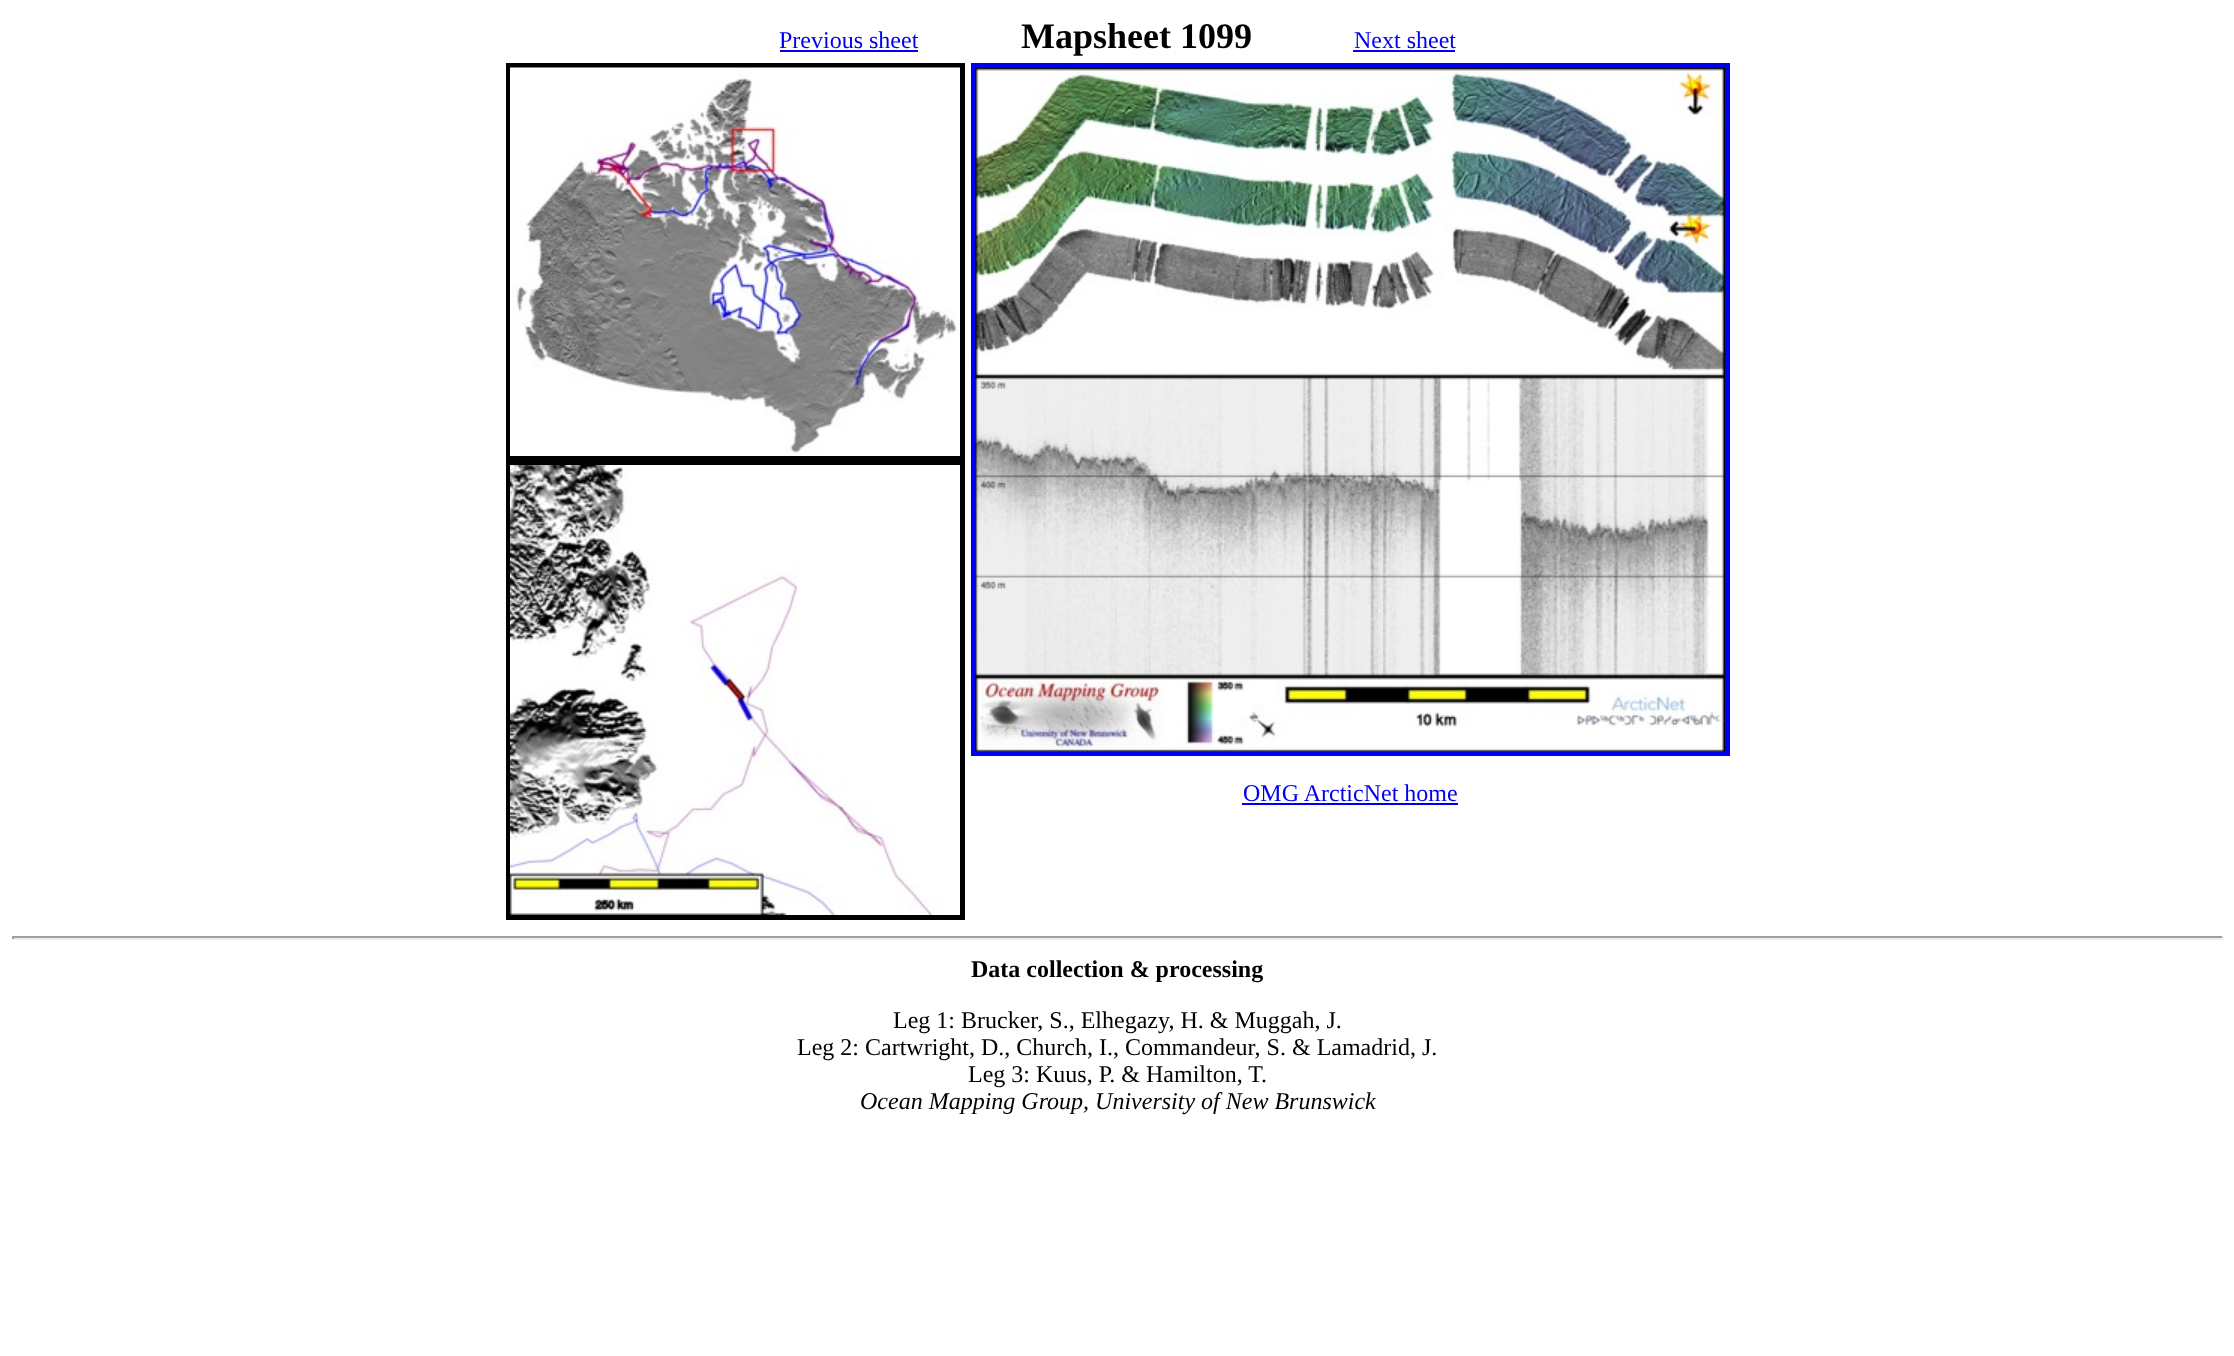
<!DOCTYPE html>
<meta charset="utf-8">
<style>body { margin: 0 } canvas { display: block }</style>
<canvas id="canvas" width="2234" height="1356"></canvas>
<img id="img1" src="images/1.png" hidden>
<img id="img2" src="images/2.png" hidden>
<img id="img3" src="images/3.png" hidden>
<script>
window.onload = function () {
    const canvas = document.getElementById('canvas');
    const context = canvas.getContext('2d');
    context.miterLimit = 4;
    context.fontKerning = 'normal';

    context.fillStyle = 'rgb(255, 255, 255)';
    context.fillRect(0, 0, 2234, 1356);
    context.fillStyle = 'rgb(0, 0, 238)';
    context.fillRect(780, 50, 138, 2);
    context.fillRect(1353, 50, 102, 2);
    context.strokeStyle = 'rgb(0, 0, 0)';
    context.lineWidth = 5;
    context.strokeRect(508.5, 65.5, 454, 393);
    context.drawImage(document.getElementById('img1'), 510, 67, 450, 389);
    context.strokeRect(508.5, 463.5, 454, 454);
    context.drawImage(document.getElementById('img2'), 510, 465, 450, 450);
    context.strokeStyle = 'rgb(0, 0, 238)';
    context.strokeRect(973.5, 65.5, 754, 688);
    context.drawImage(document.getElementById('img3'), 975, 67, 750, 685);
    context.fillRect(1242, 803, 216, 2);
    context.fillStyle = 'rgb(159, 159, 159)';
    context.fillRect(12, 936, 2211, 2);
    context.fillStyle = 'rgb(238, 238, 238)';
    context.fillRect(2222, 936, 2, 3);
    context.fillRect(12, 938, 2211, 2);
    context.fillStyle = 'rgb(159, 159, 159)';
    context.fillRect(12, 936, 2, 3);
    context.font = '24px Liberation Serif';
    context.fillStyle = 'rgb(0, 0, 238)';
    context.fillText('Previous sheet', 779, 48);
    context.font = 'bold 36px Liberation Serif';
    context.fillStyle = 'rgb(0, 0, 0)';
    context.fillText('Mapsheet 1099', 1021, 48);
    context.font = '24px Liberation Serif';
    context.fillStyle = 'rgb(0, 0, 238)';
    context.fillText('Next sheet', 1354, 48);
    context.fillText('OMG ArcticNet home', 1243, 801);
    context.font = 'bold 24px Liberation Serif';
    context.fillStyle = 'rgb(0, 0, 0)';
    context.fillText('Data collection & processing', 971, 977);
    context.font = '24px Liberation Serif';
    context.fillText('Leg 1: Brucker, S., Elhegazy, H. & Muggah, J.', 893, 1028);
    context.fillText('Leg 2: Cartwright, D., Church, I., Commandeur, S. & Lamadrid, J.', 797, 1055);
    context.fillText('Leg 3: Kuus, P. & Hamilton, T.', 968, 1082);
    context.font = 'italic 24px Liberation Serif';
    context.fillText('Ocean Mapping Group, University of New Brunswick', 860, 1109);
};
</script>
